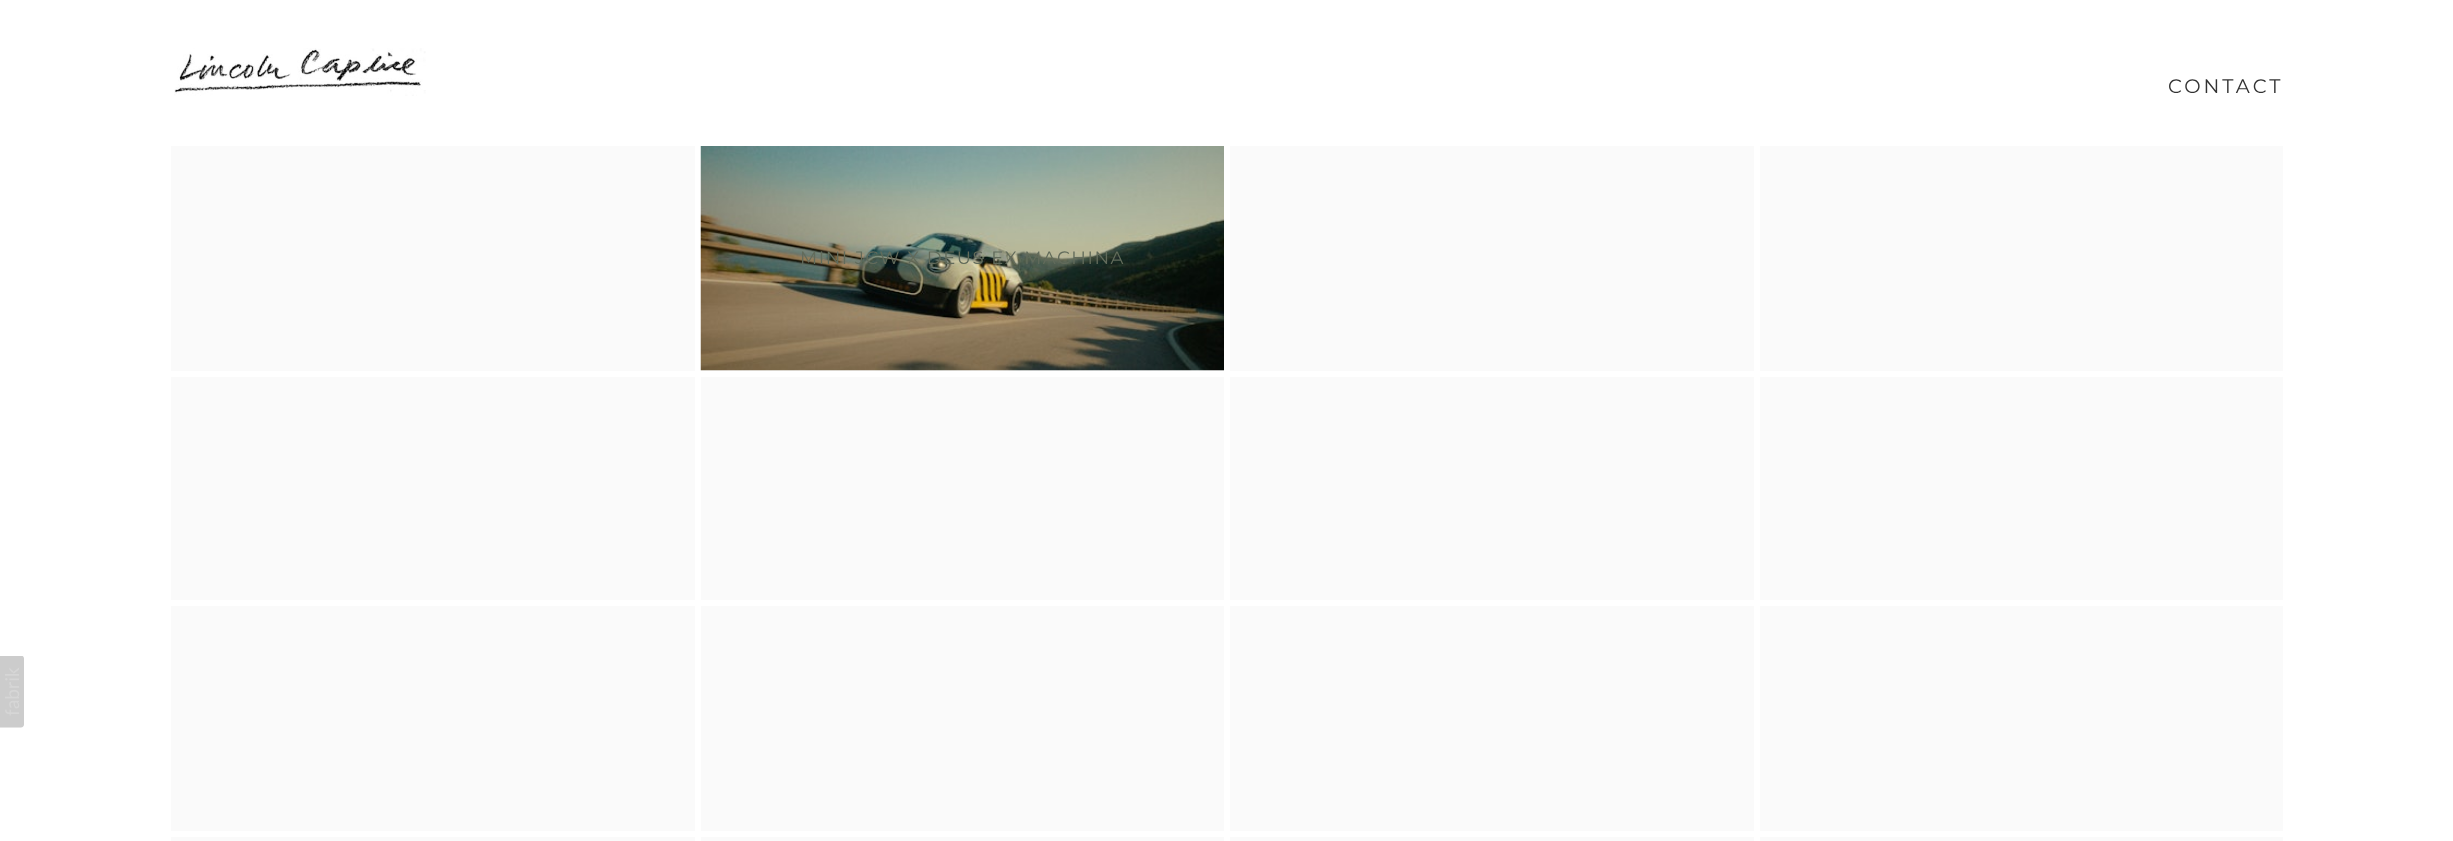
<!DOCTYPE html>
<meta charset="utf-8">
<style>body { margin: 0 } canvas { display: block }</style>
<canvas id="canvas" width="2453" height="841"></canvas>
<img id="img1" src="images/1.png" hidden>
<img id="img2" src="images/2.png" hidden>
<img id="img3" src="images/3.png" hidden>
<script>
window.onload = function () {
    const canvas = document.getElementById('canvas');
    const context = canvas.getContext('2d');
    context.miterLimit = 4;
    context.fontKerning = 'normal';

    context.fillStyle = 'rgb(255, 255, 255)';
    context.fillRect(0, 0, 2453, 841);
    context.drawImage(document.getElementById('img1'), 174, 48, 252, 48);
    context.fillStyle = 'rgb(250, 250, 250)';
    context.fillRect(171, 146, 524, 225);
    context.fillRect(701, 370, 523, 1);
    context.drawImage(document.getElementById('img2'), 700, 146, 524, 225);
    context.fillRect(1230, 146, 524, 225);
    context.fillRect(1760, 146, 523, 225);
    context.fillRect(171, 377, 524, 223);
    context.fillRect(701, 377, 523, 223);
    context.fillRect(1230, 377, 524, 223);
    context.fillRect(1760, 377, 523, 223);
    context.fillRect(171, 606, 524, 225);
    context.fillRect(701, 606, 523, 225);
    context.fillRect(1230, 606, 524, 225);
    context.fillRect(1760, 606, 523, 225);
    context.fillRect(171, 837, 524, 4);
    context.fillRect(701, 837, 523, 4);
    context.fillRect(1230, 837, 524, 4);
    context.fillRect(1760, 837, 523, 4);
    context.drawImage(document.getElementById('img3'), 0, 656, 24, 72);
    context.letterSpacing = '3px';
    context.font = '19.5px Montserrat';
    context.fillStyle = 'rgb(51, 51, 51)';
    context.fillText('CONTACT', 2168, 93);
    context.letterSpacing = '1.5px';
    context.font = '18px Montserrat';
    context.fillStyle = 'rgb(98, 107, 91)';
    context.fillText('MINI JCW X DEUS EX MACHINA', 800, 264);
};
</script>
